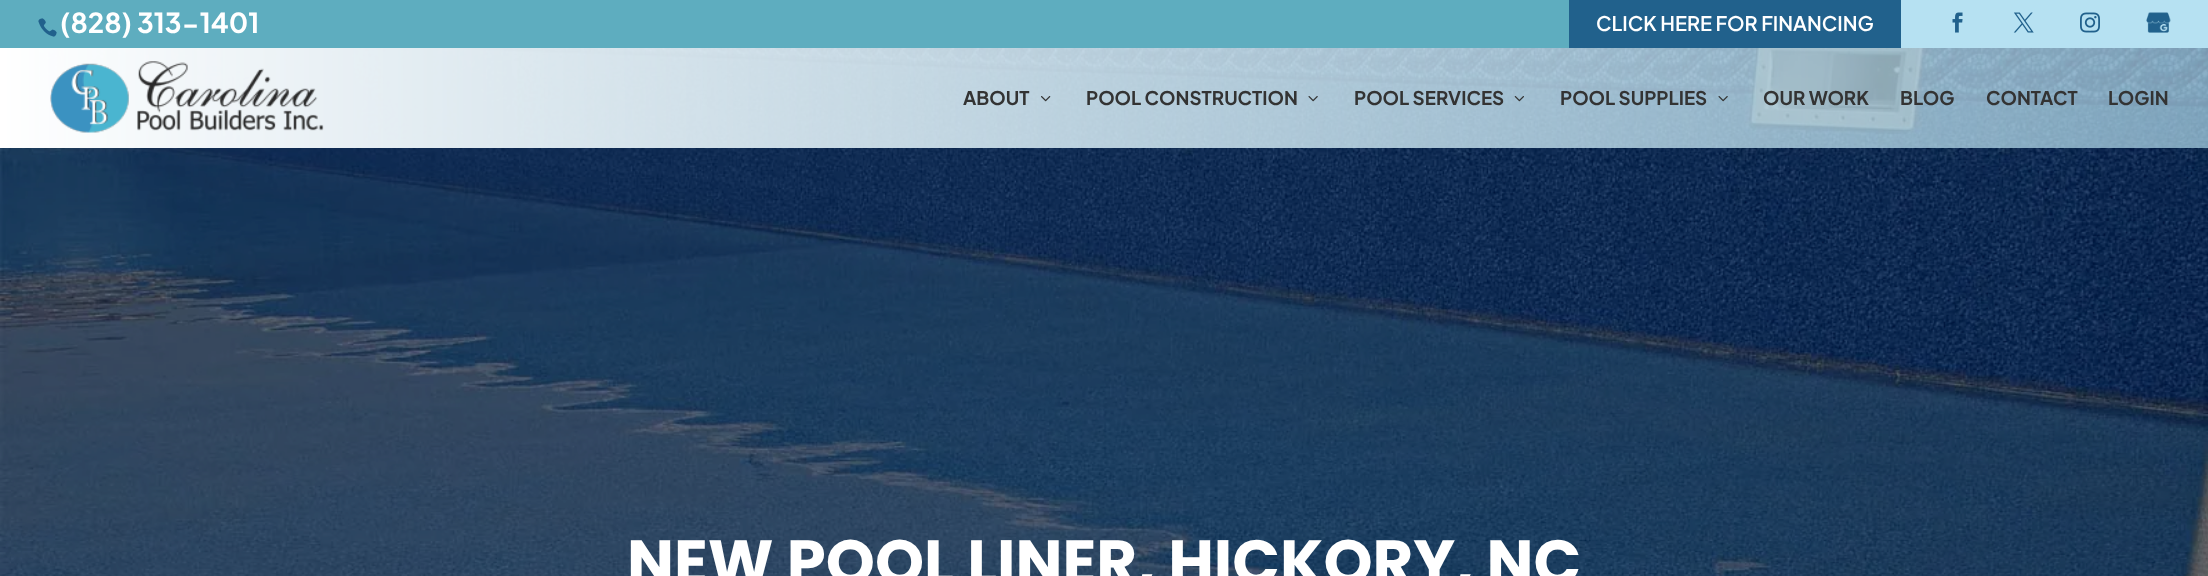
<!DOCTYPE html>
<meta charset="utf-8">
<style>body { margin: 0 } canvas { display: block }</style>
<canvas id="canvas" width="2208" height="576"></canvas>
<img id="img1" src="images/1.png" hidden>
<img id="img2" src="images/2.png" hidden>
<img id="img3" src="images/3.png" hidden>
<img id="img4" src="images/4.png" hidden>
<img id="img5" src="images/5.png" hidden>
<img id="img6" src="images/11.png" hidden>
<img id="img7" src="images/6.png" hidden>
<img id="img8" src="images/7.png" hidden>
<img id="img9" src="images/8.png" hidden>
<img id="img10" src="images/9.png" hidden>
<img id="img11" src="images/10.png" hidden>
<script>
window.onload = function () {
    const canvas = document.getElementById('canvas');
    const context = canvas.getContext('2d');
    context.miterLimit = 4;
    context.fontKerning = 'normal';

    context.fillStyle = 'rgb(255, 255, 255)';
    context.fillRect(0, 0, 2208, 576);
    context.fillStyle = 'rgb(94, 173, 191)';
    context.fillRect(0, 0, 1569, 48);
    context.fillStyle = 'rgb(182, 225, 242)';
    context.fillRect(1901, 0, 307, 48);
    context.drawImage(document.getElementById('img1'), 38, 18, 19, 19);
    context.fillStyle = 'rgb(33, 97, 140)';
    context.fillRect(1569, 0, 332, 48);
    context.drawImage(document.getElementById('img2'), 1952, 12, 11, 21);
    context.drawImage(document.getElementById('img3'), 2013, 12, 21, 21);
    context.drawImage(document.getElementById('img4'), 2080, 12, 20, 21);
    context.drawImage(document.getElementById('img5'), 2146, 12, 25, 21);
    context.drawImage(document.getElementById('img6'), 0, 48, 2208, 528);
    context.drawImage(document.getElementById('img7'), 50, 61, 274, 72);
    context.drawImage(document.getElementById('img8'), 1041, 96, 10, 6);
    context.drawImage(document.getElementById('img9'), 1308, 96, 10, 6);
    context.drawImage(document.getElementById('img10'), 1514, 96, 10, 6);
    context.drawImage(document.getElementById('img11'), 1718, 96, 10, 6);
    context.font = 'bold 27.5px Plus Jakarta Sans';
    context.fillStyle = 'rgb(255, 255, 255)';
    context.fillText('(828) 313-1401', 60, 33);
    context.font = '600 20px Plus Jakarta Sans';
    context.fillText('CLICK HERE FOR FINANCING', 1596, 31);
    context.font = 'bold 18.75px Plus Jakarta Sans';
    context.fillStyle = 'rgb(51, 51, 51)';
    context.fillText('ABOUT', 963, 105);
    context.fillText('POOL CONSTRUCTION', 1086, 105);
    context.fillText('POOL SERVICES', 1354, 105);
    context.fillText('POOL SUPPLIES', 1560, 105);
    context.fillText('OUR WORK', 1763, 105);
    context.fillText('BLOG', 1900, 105);
    context.fillText('CONTACT', 1986, 105);
    context.fillText('LOGIN', 2108, 105);
    context.font = 'bold 62.5px Poppins';
    context.fillStyle = 'rgb(255, 255, 255)';
    context.fillText('NEW POOL LINER, HICKORY, NC', 627, 584);
};
</script>
